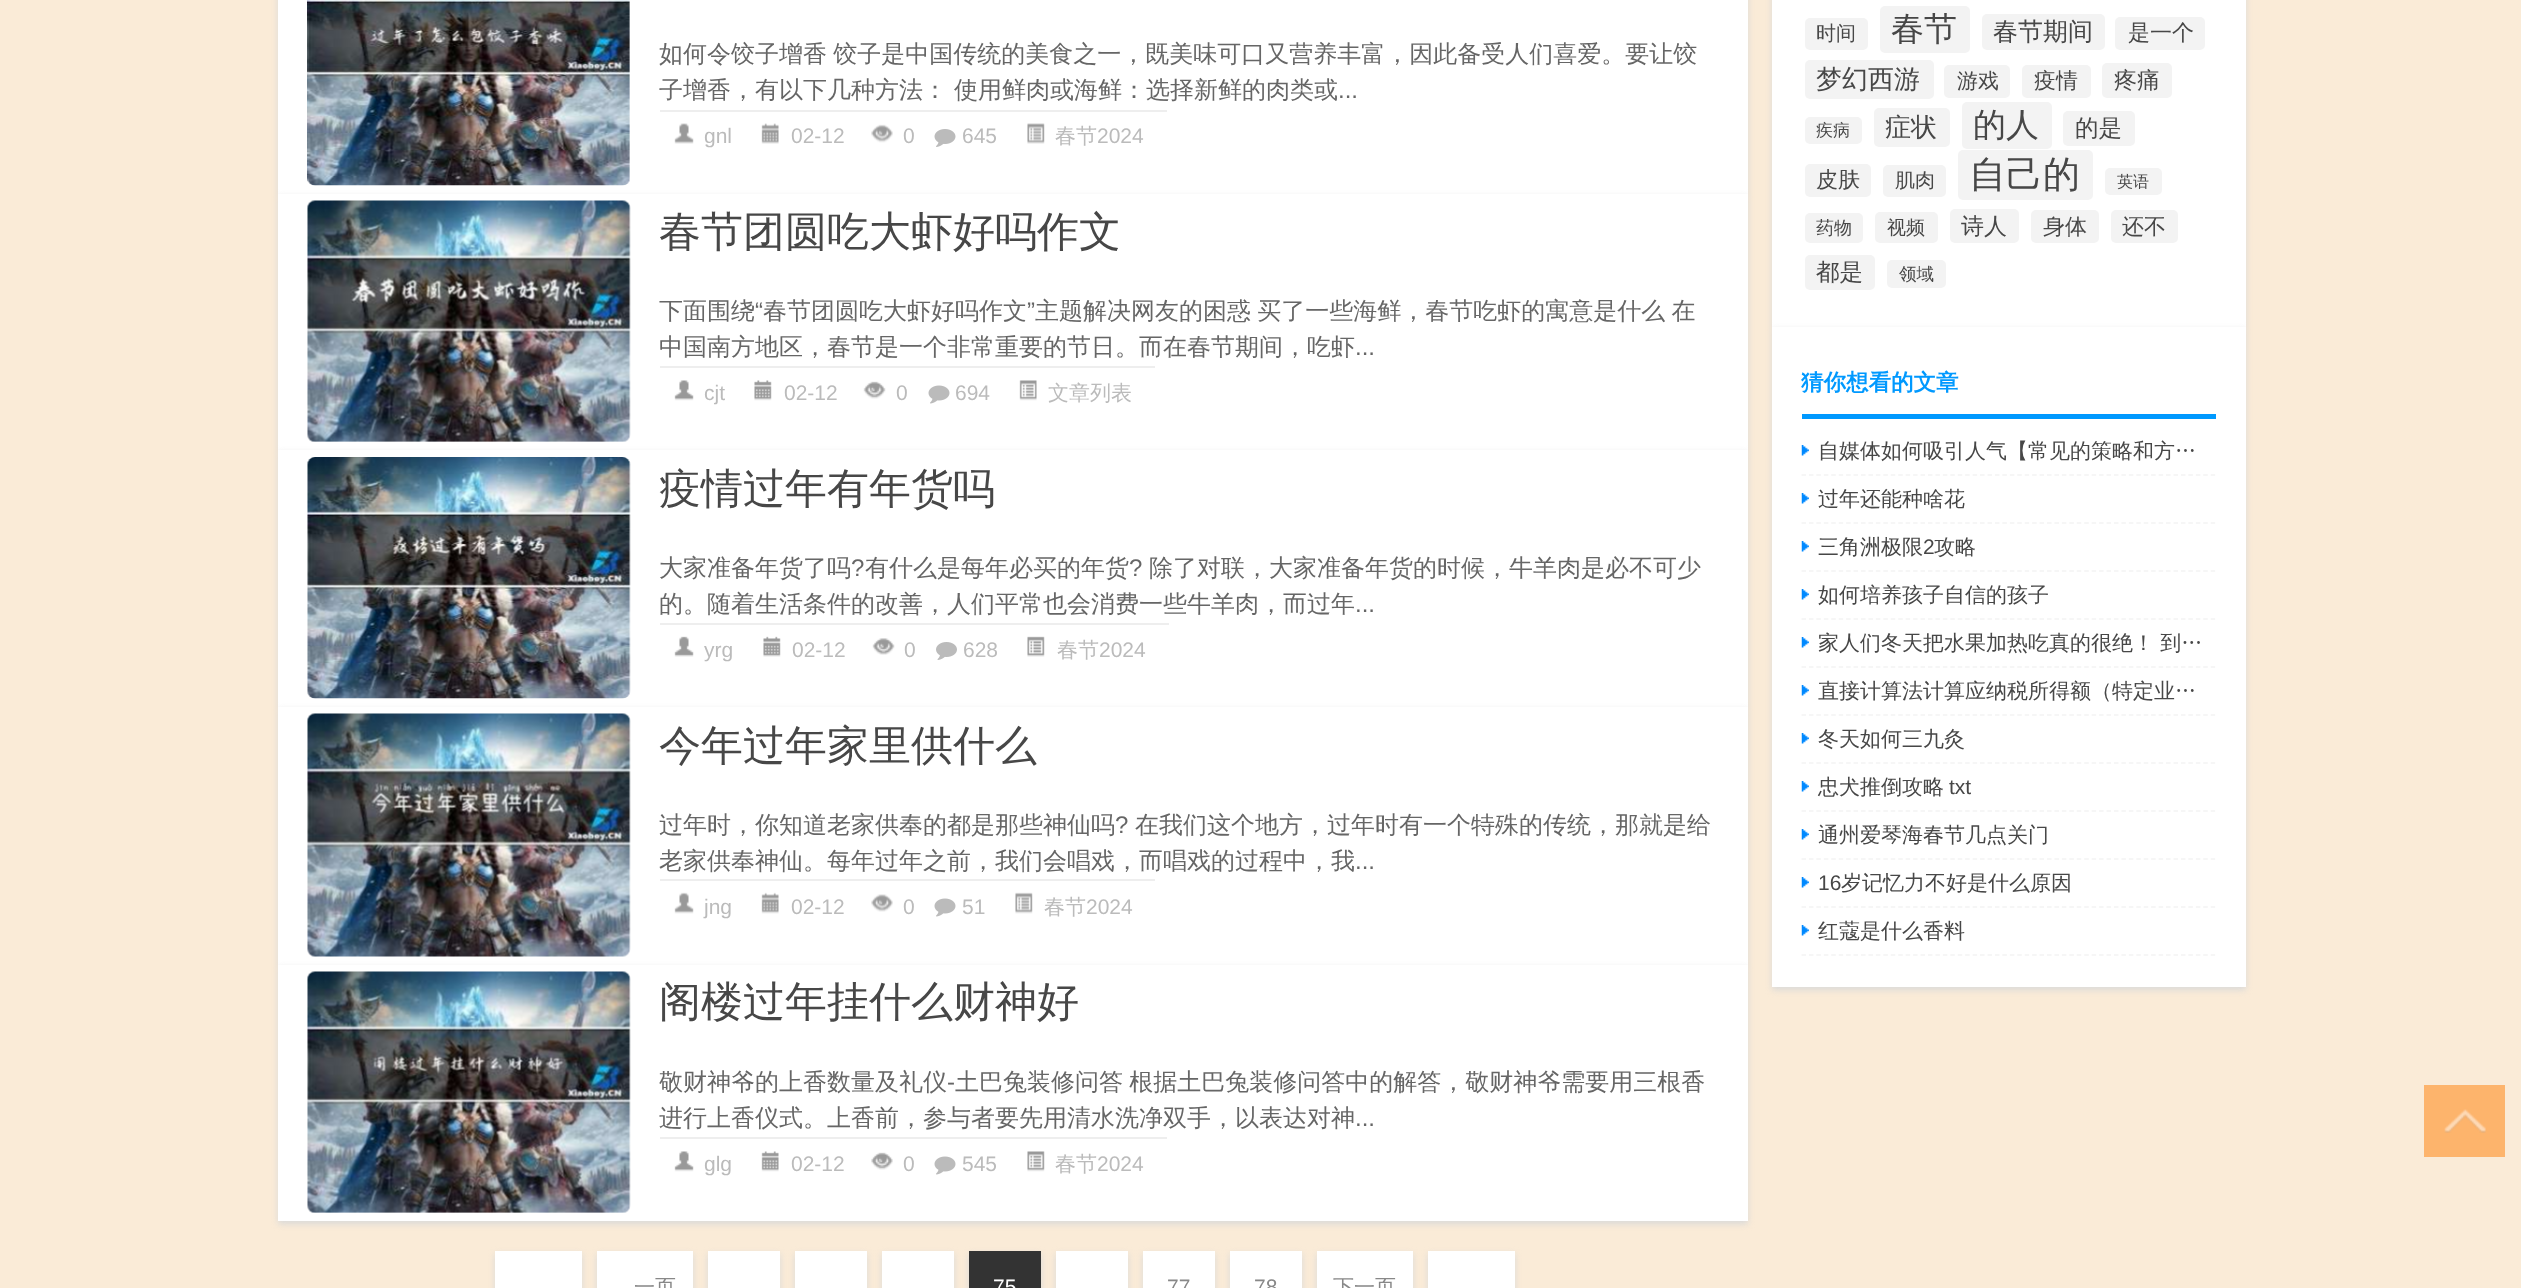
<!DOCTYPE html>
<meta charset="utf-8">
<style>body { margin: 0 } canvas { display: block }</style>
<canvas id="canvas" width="2521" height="1288"></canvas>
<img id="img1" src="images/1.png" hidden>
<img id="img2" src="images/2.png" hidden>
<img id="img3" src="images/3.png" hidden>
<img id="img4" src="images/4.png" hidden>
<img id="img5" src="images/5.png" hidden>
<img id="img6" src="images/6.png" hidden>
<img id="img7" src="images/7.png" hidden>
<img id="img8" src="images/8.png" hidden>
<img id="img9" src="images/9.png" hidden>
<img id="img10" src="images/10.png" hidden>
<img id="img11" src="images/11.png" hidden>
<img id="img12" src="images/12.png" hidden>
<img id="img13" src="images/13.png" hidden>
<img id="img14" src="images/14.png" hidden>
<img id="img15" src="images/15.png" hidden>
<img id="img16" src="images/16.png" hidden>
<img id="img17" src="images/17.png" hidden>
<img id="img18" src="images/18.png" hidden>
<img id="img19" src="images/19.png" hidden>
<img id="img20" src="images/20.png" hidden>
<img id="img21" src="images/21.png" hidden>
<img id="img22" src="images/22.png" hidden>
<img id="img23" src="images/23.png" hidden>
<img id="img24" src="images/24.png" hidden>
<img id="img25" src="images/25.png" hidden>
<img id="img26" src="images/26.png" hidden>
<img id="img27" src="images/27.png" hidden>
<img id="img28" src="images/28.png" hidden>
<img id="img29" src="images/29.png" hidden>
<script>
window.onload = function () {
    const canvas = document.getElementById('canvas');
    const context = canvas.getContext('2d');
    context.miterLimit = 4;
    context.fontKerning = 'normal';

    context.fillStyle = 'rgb(250, 235, 215)';
    context.fillRect(0, 0, 2521, 1288);
    context.fillStyle = 'rgb(217, 217, 217)';
    context.filter = 'blur(3px)';
    context.beginPath();
    context.rect(278, -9, 1470, 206);
    context.fill();
    context.filter = 'none';
    context.fillStyle = 'rgb(255, 255, 255)';
    context.fillRect(278, 0, 1470, 194);
    context.drawImage(document.getElementById('img1'), 307, 0, 323, 186);
    context.fillStyle = 'rgb(238, 238, 238)';
    context.fillRect(660, 110, 507, 2);
    context.drawImage(document.getElementById('img2'), 674, 123, 20, 21);
    context.drawImage(document.getElementById('img3'), 761, 123, 18, 21);
    context.drawImage(document.getElementById('img4'), 871, 124, 22, 19);
    context.drawImage(document.getElementById('img5'), 934, 129, 22, 18);
    context.drawImage(document.getElementById('img6'), 1027, 123, 18, 21);
    context.fillStyle = 'rgb(217, 217, 217)';
    context.filter = 'blur(3px)';
    context.beginPath();
    context.rect(278, 197, 1470, 256);
    context.fill();
    context.filter = 'none';
    context.fillStyle = 'rgb(255, 255, 255)';
    context.fillRect(278, 194, 1470, 256);
    context.drawImage(document.getElementById('img7'), 307, 200, 324, 242);
    context.fillStyle = 'rgb(238, 238, 238)';
    context.fillRect(660, 366, 495, 2);
    context.drawImage(document.getElementById('img8'), 674, 380, 20, 21);
    context.drawImage(document.getElementById('img9'), 754, 380, 18, 21);
    context.drawImage(document.getElementById('img10'), 863, 381, 23, 18);
    context.drawImage(document.getElementById('img11'), 928, 385, 22, 19);
    context.drawImage(document.getElementById('img12'), 1019, 380, 18, 21);
    context.fillStyle = 'rgb(217, 217, 217)';
    context.filter = 'blur(3px)';
    context.beginPath();
    context.rect(278, 453, 1470, 257);
    context.fill();
    context.filter = 'none';
    context.fillStyle = 'rgb(255, 255, 255)';
    context.fillRect(278, 450, 1470, 257);
    context.drawImage(document.getElementById('img13'), 307, 457, 324, 242);
    context.fillStyle = 'rgb(238, 238, 238)';
    context.fillRect(660, 623, 509, 2);
    context.drawImage(document.getElementById('img14'), 674, 636, 20, 21);
    context.drawImage(document.getElementById('img15'), 763, 636, 18, 21);
    context.drawImage(document.getElementById('img16'), 872, 638, 23, 17);
    context.drawImage(document.getElementById('img17'), 936, 642, 21, 18);
    context.drawImage(document.getElementById('img18'), 1027, 636, 18, 21);
    context.fillStyle = 'rgb(217, 217, 217)';
    context.filter = 'blur(3px)';
    context.beginPath();
    context.rect(278, 710, 1470, 258);
    context.fill();
    context.filter = 'none';
    context.fillStyle = 'rgb(255, 255, 255)';
    context.fillRect(278, 707, 1470, 258);
    context.drawImage(document.getElementById('img19'), 307, 713, 324, 244);
    context.fillStyle = 'rgb(238, 238, 238)';
    context.fillRect(660, 879, 495, 2);
    context.drawImage(document.getElementById('img20'), 674, 892, 20, 22);
    context.drawImage(document.getElementById('img21'), 761, 892, 18, 22);
    context.drawImage(document.getElementById('img22'), 871, 894, 22, 18);
    context.drawImage(document.getElementById('img11'), 934, 898, 22, 19);
    context.drawImage(document.getElementById('img23'), 1015, 892, 18, 22);
    context.fillStyle = 'rgb(217, 217, 217)';
    context.filter = 'blur(3px)';
    context.beginPath();
    context.rect(278, 968, 1470, 256);
    context.fill();
    context.filter = 'none';
    context.fillStyle = 'rgb(255, 255, 255)';
    context.fillRect(278, 965, 1470, 256);
    context.drawImage(document.getElementById('img24'), 307, 971, 324, 242);
    context.fillStyle = 'rgb(238, 238, 238)';
    context.fillRect(660, 1137, 507, 2);
    context.drawImage(document.getElementById('img8'), 674, 1151, 20, 21);
    context.drawImage(document.getElementById('img25'), 761, 1151, 18, 21);
    context.drawImage(document.getElementById('img26'), 871, 1152, 22, 18);
    context.drawImage(document.getElementById('img11'), 934, 1156, 22, 19);
    context.drawImage(document.getElementById('img27'), 1027, 1151, 18, 21);
    context.fillStyle = 'rgb(217, 217, 217)';
    context.filter = 'blur(3px)';
    context.beginPath();
    context.rect(495, 1254, 87, 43);
    context.fill();
    context.filter = 'none';
    context.fillStyle = 'rgb(255, 255, 255)';
    context.fillRect(495, 1251, 87, 37);
    context.fillStyle = 'rgb(217, 217, 217)';
    context.filter = 'blur(3px)';
    context.beginPath();
    context.rect(597, 1254, 96, 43);
    context.fill();
    context.filter = 'none';
    context.fillStyle = 'rgb(255, 255, 255)';
    context.fillRect(597, 1251, 96, 37);
    context.fillStyle = 'rgb(217, 217, 217)';
    context.filter = 'blur(3px)';
    context.beginPath();
    context.rect(708, 1254, 72, 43);
    context.fill();
    context.filter = 'none';
    context.fillStyle = 'rgb(255, 255, 255)';
    context.fillRect(708, 1251, 72, 37);
    context.fillStyle = 'rgb(217, 217, 217)';
    context.filter = 'blur(3px)';
    context.beginPath();
    context.rect(795, 1254, 72, 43);
    context.fill();
    context.filter = 'none';
    context.fillStyle = 'rgb(255, 255, 255)';
    context.fillRect(795, 1251, 72, 37);
    context.fillStyle = 'rgb(217, 217, 217)';
    context.filter = 'blur(3px)';
    context.beginPath();
    context.rect(882, 1254, 72, 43);
    context.fill();
    context.filter = 'none';
    context.fillStyle = 'rgb(255, 255, 255)';
    context.fillRect(882, 1251, 72, 37);
    context.fillStyle = 'rgb(217, 217, 217)';
    context.filter = 'blur(3px)';
    context.beginPath();
    context.rect(969, 1254, 72, 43);
    context.fill();
    context.filter = 'none';
    context.fillStyle = 'rgb(51, 51, 51)';
    context.fillRect(969, 1251, 72, 37);
    context.fillStyle = 'rgb(217, 217, 217)';
    context.filter = 'blur(3px)';
    context.beginPath();
    context.rect(1056, 1254, 72, 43);
    context.fill();
    context.filter = 'none';
    context.fillStyle = 'rgb(255, 255, 255)';
    context.fillRect(1056, 1251, 72, 37);
    context.fillStyle = 'rgb(217, 217, 217)';
    context.filter = 'blur(3px)';
    context.beginPath();
    context.rect(1143, 1254, 72, 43);
    context.fill();
    context.filter = 'none';
    context.fillStyle = 'rgb(255, 255, 255)';
    context.fillRect(1143, 1251, 72, 37);
    context.fillStyle = 'rgb(217, 217, 217)';
    context.filter = 'blur(3px)';
    context.beginPath();
    context.rect(1230, 1254, 72, 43);
    context.fill();
    context.filter = 'none';
    context.fillStyle = 'rgb(255, 255, 255)';
    context.fillRect(1230, 1251, 72, 37);
    context.fillStyle = 'rgb(217, 217, 217)';
    context.filter = 'blur(3px)';
    context.beginPath();
    context.rect(1317, 1254, 96, 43);
    context.fill();
    context.filter = 'none';
    context.fillStyle = 'rgb(255, 255, 255)';
    context.fillRect(1317, 1251, 96, 37);
    context.fillStyle = 'rgb(217, 217, 217)';
    context.filter = 'blur(3px)';
    context.beginPath();
    context.rect(1428, 1254, 87, 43);
    context.fill();
    context.filter = 'none';
    context.fillStyle = 'rgb(255, 255, 255)';
    context.fillRect(1428, 1251, 87, 37);
    context.fillStyle = 'rgb(217, 217, 217)';
    context.filter = 'blur(3px)';
    context.beginPath();
    context.rect(1772, -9, 474, 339);
    context.fill();
    context.filter = 'none';
    context.fillStyle = 'rgb(255, 255, 255)';
    context.fillRect(1772, 0, 474, 327);
    context.fillStyle = 'rgb(243, 243, 243)';
    context.beginPath();
    context.roundRect(1805, 18, 63, 32, 5);
    context.fill();
    context.beginPath();
    context.roundRect(1880, 6, 90, 47, 5);
    context.fill();
    context.beginPath();
    context.roundRect(1982, 14, 123, 36, 5);
    context.fill();
    context.beginPath();
    context.roundRect(2115, 17, 90, 33, 5);
    context.fill();
    context.beginPath();
    context.roundRect(1805, 60, 129, 39, 5);
    context.fill();
    context.beginPath();
    context.roundRect(1944, 65, 66, 33, 5);
    context.fill();
    context.beginPath();
    context.roundRect(2022, 65, 69, 33, 5);
    context.fill();
    context.beginPath();
    context.roundRect(2102, 63, 70, 35, 5);
    context.fill();
    context.beginPath();
    context.roundRect(1805, 117, 57, 27, 5);
    context.fill();
    context.beginPath();
    context.roundRect(1874, 108, 76, 39, 5);
    context.fill();
    context.beginPath();
    context.roundRect(1962, 102, 90, 47, 5);
    context.fill();
    context.beginPath();
    context.roundRect(2063, 111, 72, 35, 5);
    context.fill();
    context.beginPath();
    context.roundRect(1805, 164, 66, 33, 5);
    context.fill();
    context.beginPath();
    context.roundRect(1883, 165, 63, 32, 5);
    context.fill();
    context.beginPath();
    context.roundRect(1958, 150, 135, 50, 5);
    context.fill();
    context.beginPath();
    context.roundRect(2105, 168, 57, 27, 5);
    context.fill();
    context.beginPath();
    context.roundRect(1805, 213, 58, 30, 5);
    context.fill();
    context.beginPath();
    context.roundRect(1875, 212, 63, 31, 5);
    context.fill();
    context.beginPath();
    context.roundRect(1950, 209, 69, 34, 5);
    context.fill();
    context.beginPath();
    context.roundRect(2031, 210, 68, 33, 5);
    context.fill();
    context.beginPath();
    context.roundRect(2111, 210, 67, 33, 5);
    context.fill();
    context.beginPath();
    context.roundRect(1805, 255, 70, 35, 5);
    context.fill();
    context.beginPath();
    context.roundRect(1887, 260, 59, 28, 5);
    context.fill();
    context.fillStyle = 'rgb(217, 217, 217)';
    context.filter = 'blur(3px)';
    context.beginPath();
    context.rect(1772, 330, 474, 660);
    context.fill();
    context.filter = 'none';
    context.fillStyle = 'rgb(255, 255, 255)';
    context.fillRect(1772, 327, 474, 660);
    context.fillStyle = 'rgb(0, 153, 255)';
    context.fillRect(1802, 414, 414, 5);
    context.drawImage(document.getElementById('img28'), 1801, 445, 8, 11);
    context.beginPath();
    context.moveTo(1801.5, 475);
    context.lineTo(2215.5, 475);
    context.strokeStyle = 'rgb(243, 243, 243)';
    context.lineWidth = 1.5;
    context.setLineDash([4.5, 2.94]);
    context.stroke();
    context.drawImage(document.getElementById('img28'), 1801, 493, 8, 11);
    context.beginPath();
    context.moveTo(1801.5, 523);
    context.lineTo(2215.5, 523);
    context.stroke();
    context.drawImage(document.getElementById('img28'), 1801, 541, 8, 11);
    context.beginPath();
    context.moveTo(1801.5, 571);
    context.lineTo(2215.5, 571);
    context.stroke();
    context.drawImage(document.getElementById('img28'), 1801, 589, 8, 11);
    context.beginPath();
    context.moveTo(1801.5, 619);
    context.lineTo(2215.5, 619);
    context.stroke();
    context.drawImage(document.getElementById('img28'), 1801, 637, 8, 11);
    context.beginPath();
    context.moveTo(1801.5, 667);
    context.lineTo(2215.5, 667);
    context.stroke();
    context.drawImage(document.getElementById('img28'), 1801, 685, 8, 11);
    context.beginPath();
    context.moveTo(1801.5, 715);
    context.lineTo(2215.5, 715);
    context.stroke();
    context.drawImage(document.getElementById('img28'), 1801, 733, 8, 11);
    context.beginPath();
    context.moveTo(1801.5, 763);
    context.lineTo(2215.5, 763);
    context.stroke();
    context.drawImage(document.getElementById('img28'), 1801, 781, 8, 11);
    context.beginPath();
    context.moveTo(1801.5, 811);
    context.lineTo(2215.5, 811);
    context.stroke();
    context.drawImage(document.getElementById('img28'), 1801, 829, 8, 11);
    context.beginPath();
    context.moveTo(1801.5, 859);
    context.lineTo(2215.5, 859);
    context.stroke();
    context.drawImage(document.getElementById('img28'), 1801, 877, 8, 11);
    context.beginPath();
    context.moveTo(1801.5, 907);
    context.lineTo(2215.5, 907);
    context.stroke();
    context.drawImage(document.getElementById('img28'), 1801, 925, 8, 11);
    context.beginPath();
    context.moveTo(1801.5, 955);
    context.lineTo(2215.5, 955);
    context.stroke();
    context.fillStyle = 'rgb(253, 180, 108)';
    context.fillRect(2424, 1085, 81, 72);
    context.drawImage(document.getElementById('img29'), 2444, 1109, 42, 24);
    context.wordSpacing = '-1px';
    context.font = '500 24px WenQuanYi Zen Hei';
    context.fillStyle = 'rgb(102, 102, 102)';
    context.fillText('如何令饺子增香 饺子是中国传统的美食之一，既美味可口又营养丰富，因此备受人们喜爱。要让饺', 659, 62);
    context.wordSpacing = '0px';
    context.fillText('子增香，有以下几种方法：', 659, 98);
    context.fillText('使用鲜肉或海鲜：选择新鲜的肉类或', 954, 98);
    context.font = '24px Liberation Sans';
    context.fillText('...', 1338, 98);
    context.font = '21px Liberation Sans';
    context.fillStyle = 'rgb(187, 187, 187)';
    context.fillText('gnl', 704, 143);
    context.fillText('02-12', 791, 143);
    context.fillText('0', 903, 143);
    context.fillText('645', 962, 143);
    context.font = '500 21px WenQuanYi Zen Hei';
    context.fillText('春节', 1055, 143);
    context.font = '21px Liberation Sans';
    context.fillText('2024', 1097, 143);
    context.font = '500 42px WenQuanYi Zen Hei';
    context.fillStyle = 'rgb(71, 71, 71)';
    context.fillText('春节团圆吃大虾好吗作文', 659, 246);
    context.font = '500 24px WenQuanYi Zen Hei';
    context.fillStyle = 'rgb(102, 102, 102)';
    context.fillText('下面围绕', 659, 319);
    context.font = '24px Liberation Sans';
    context.fillText('“', 755, 319);
    context.font = '500 24px WenQuanYi Zen Hei';
    context.fillText('春节团圆吃大虾好吗作文', 763, 319);
    context.font = '24px Liberation Sans';
    context.fillText('”', 1027, 319);
    context.wordSpacing = '-1px';
    context.font = '500 24px WenQuanYi Zen Hei';
    context.fillText('主题解决网友的困惑 买了一些海鲜，春节吃虾的寓意是什么 在', 1035, 319);
    context.wordSpacing = '0px';
    context.fillText('中国南方地区，春节是一个非常重要的节日。而在春节期间，吃虾', 659, 355);
    context.font = '24px Liberation Sans';
    context.fillText('...', 1355, 355);
    context.font = '21px Liberation Sans';
    context.fillStyle = 'rgb(187, 187, 187)';
    context.fillText('cjt', 704, 400);
    context.fillText('02-12', 784, 400);
    context.fillText('0', 896, 400);
    context.fillText('694', 955, 400);
    context.font = '500 21px WenQuanYi Zen Hei';
    context.fillText('文章列表', 1048, 400);
    context.font = '500 42px WenQuanYi Zen Hei';
    context.fillStyle = 'rgb(71, 71, 71)';
    context.fillText('疫情过年有年货吗', 659, 503);
    context.font = '500 24px WenQuanYi Zen Hei';
    context.fillStyle = 'rgb(102, 102, 102)';
    context.fillText('大家准备年货了吗', 659, 576);
    context.font = '24px Liberation Sans';
    context.fillText('?', 851, 576);
    context.font = '500 24px WenQuanYi Zen Hei';
    context.fillText('有什么是每年必买的年货', 865, 576);
    context.font = '24px Liberation Sans';
    context.fillText('?', 1129, 576);
    context.font = '500 24px WenQuanYi Zen Hei';
    context.fillText('除了对联，大家准备年货的时候，牛羊肉是必不可少', 1149, 576);
    context.fillText('的。随着生活条件的改善，人们平常也会消费一些牛羊肉，而过年', 659, 612);
    context.font = '24px Liberation Sans';
    context.fillText('...', 1355, 612);
    context.font = '21px Liberation Sans';
    context.fillStyle = 'rgb(187, 187, 187)';
    context.fillText('yrg', 704, 657);
    context.fillText('02-12', 792, 657);
    context.fillText('0', 904, 657);
    context.fillText('628', 963, 657);
    context.font = '500 21px WenQuanYi Zen Hei';
    context.fillText('春节', 1057, 657);
    context.font = '21px Liberation Sans';
    context.fillText('2024', 1099, 657);
    context.font = '500 42px WenQuanYi Zen Hei';
    context.fillStyle = 'rgb(71, 71, 71)';
    context.fillText('今年过年家里供什么', 659, 760);
    context.font = '500 24px WenQuanYi Zen Hei';
    context.fillStyle = 'rgb(102, 102, 102)';
    context.fillText('过年时，你知道老家供奉的都是那些神仙吗', 659, 833);
    context.font = '24px Liberation Sans';
    context.fillText('?', 1115, 833);
    context.font = '500 24px WenQuanYi Zen Hei';
    context.fillText('在我们这个地方，过年时有一个特殊的传统，那就是给', 1135, 833);
    context.fillText('老家供奉神仙。每年过年之前，我们会唱戏，而唱戏的过程中，我', 659, 869);
    context.font = '24px Liberation Sans';
    context.fillText('...', 1355, 869);
    context.font = '21px Liberation Sans';
    context.fillStyle = 'rgb(187, 187, 187)';
    context.fillText('jng', 704, 914);
    context.fillText('02-12', 791, 914);
    context.fillText('0', 903, 914);
    context.fillText('51', 962, 914);
    context.font = '500 21px WenQuanYi Zen Hei';
    context.fillText('春节', 1044, 914);
    context.font = '21px Liberation Sans';
    context.fillText('2024', 1086, 914);
    context.font = '500 42px WenQuanYi Zen Hei';
    context.fillStyle = 'rgb(71, 71, 71)';
    context.fillText('阁楼过年挂什么财神好', 659, 1016);
    context.font = '500 24px WenQuanYi Zen Hei';
    context.fillStyle = 'rgb(102, 102, 102)';
    context.fillText('敬财神爷的上香数量及礼仪', 659, 1090);
    context.font = '24px Liberation Sans';
    context.fillText('-', 947, 1090);
    context.wordSpacing = '-1px';
    context.font = '500 24px WenQuanYi Zen Hei';
    context.fillText('土巴兔装修问答 根据土巴兔装修问答中的解答，敬财神爷需要用三根香', 955, 1090);
    context.wordSpacing = '0px';
    context.fillText('进行上香仪式。上香前，参与者要先用清水洗净双手，以表达对神', 659, 1126);
    context.font = '24px Liberation Sans';
    context.fillText('...', 1355, 1126);
    context.font = '21px Liberation Sans';
    context.fillStyle = 'rgb(187, 187, 187)';
    context.fillText('glg', 704, 1171);
    context.fillText('02-12', 791, 1171);
    context.fillText('0', 903, 1171);
    context.fillText('545', 962, 1171);
    context.font = '500 21px WenQuanYi Zen Hei';
    context.fillText('春节', 1055, 1171);
    context.font = '21px Liberation Sans';
    context.fillText('2024', 1097, 1171);
    context.font = '500 21px WenQuanYi Zen Hei';
    context.fillStyle = 'rgb(136, 136, 136)';
    context.fillText('一页', 634, 1294);
    context.font = '21px Liberation Sans';
    context.fillStyle = 'rgb(255, 255, 255)';
    context.fillText('75', 993, 1294);
    context.fillStyle = 'rgb(136, 136, 136)';
    context.fillText('77', 1167, 1294);
    context.fillText('78', 1254, 1294);
    context.font = '500 21px WenQuanYi Zen Hei';
    context.fillText('下一页', 1333, 1294);
    context.font = '500 20px WenQuanYi Zen Hei';
    context.fillStyle = 'rgb(71, 71, 71)';
    context.fillText('时间', 1816, 40);
    context.font = '500 33px WenQuanYi Zen Hei';
    context.fillText('春节', 1891, 40);
    context.font = '500 25px WenQuanYi Zen Hei';
    context.fillText('春节期间', 1993, 40);
    context.font = '500 22px WenQuanYi Zen Hei';
    context.fillText('是一个', 2128, 40);
    context.font = '500 26px WenQuanYi Zen Hei';
    context.fillText('梦幻西游', 1816, 88);
    context.font = '500 21px WenQuanYi Zen Hei';
    context.fillText('游戏', 1957, 88);
    context.font = '500 22px WenQuanYi Zen Hei';
    context.fillText('疫情', 2034, 88);
    context.font = '500 23px WenQuanYi Zen Hei';
    context.fillText('疼痛', 2114, 88);
    context.font = '500 17px WenQuanYi Zen Hei';
    context.fillText('疾病', 1816, 136);
    context.font = '500 26px WenQuanYi Zen Hei';
    context.fillText('症状', 1885, 136);
    context.font = '500 33px WenQuanYi Zen Hei';
    context.fillText('的人', 1973, 136);
    context.font = '500 23.5px WenQuanYi Zen Hei';
    context.fillText('的是', 2075, 136);
    context.font = '500 22px WenQuanYi Zen Hei';
    context.fillText('皮肤', 1816, 187);
    context.font = '500 20px WenQuanYi Zen Hei';
    context.fillText('肌肉', 1895, 187);
    context.font = '500 37px WenQuanYi Zen Hei';
    context.fillText('自己的', 1969, 187);
    context.font = '500 16px WenQuanYi Zen Hei';
    context.fillText('英语', 2117, 187);
    context.font = '500 18px WenQuanYi Zen Hei';
    context.fillText('药物', 1816, 234);
    context.font = '500 19px WenQuanYi Zen Hei';
    context.fillText('视频', 1887, 234);
    context.font = '500 23px WenQuanYi Zen Hei';
    context.fillText('诗人', 1961, 234);
    context.font = '500 22px WenQuanYi Zen Hei';
    context.fillText('身体', 2043, 234);
    context.fillText('还不', 2122, 234);
    context.font = '500 23.5px WenQuanYi Zen Hei';
    context.fillText('都是', 1816, 280);
    context.font = '500 17.5px WenQuanYi Zen Hei';
    context.fillText('领域', 1899, 280);
    context.font = 'bold 22.5px WenQuanYi Zen Hei';
    context.fillStyle = 'rgb(0, 153, 255)';
    context.fillText('猜你想看的文章', 1801, 390);
    context.font = '500 21px WenQuanYi Zen Hei';
    context.fillStyle = 'rgb(71, 71, 71)';
    context.fillText('自媒体如何吸引人气【常见的策略和方…', 1818, 458);
    context.fillText('过年还能种啥花', 1818, 506);
    context.fillText('三角洲极限', 1818, 554);
    context.font = '21px Liberation Sans';
    context.fillText('2', 1923, 554);
    context.font = '500 21px WenQuanYi Zen Hei';
    context.fillText('攻略', 1934, 554);
    context.fillText('如何培养孩子自信的孩子', 1818, 602);
    context.fillText('家人们冬天把水果加热吃真的很绝！ 到…', 1818, 650);
    context.fillText('直接计算法计算应纳税所得额（特定业…', 1818, 698);
    context.fillText('冬天如何三九灸', 1818, 746);
    context.fillText('忠犬推倒攻略', 1818, 794);
    context.font = '21px Liberation Sans';
    context.fillText('txt', 1949, 794);
    context.font = '500 21px WenQuanYi Zen Hei';
    context.fillText('通州爱琴海春节几点关门', 1818, 842);
    context.font = '21px Liberation Sans';
    context.fillText('16', 1818, 890);
    context.font = '500 21px WenQuanYi Zen Hei';
    context.fillText('岁记忆力不好是什么原因', 1841, 890);
    context.fillText('红蔻是什么香料', 1818, 938);
};
</script>
